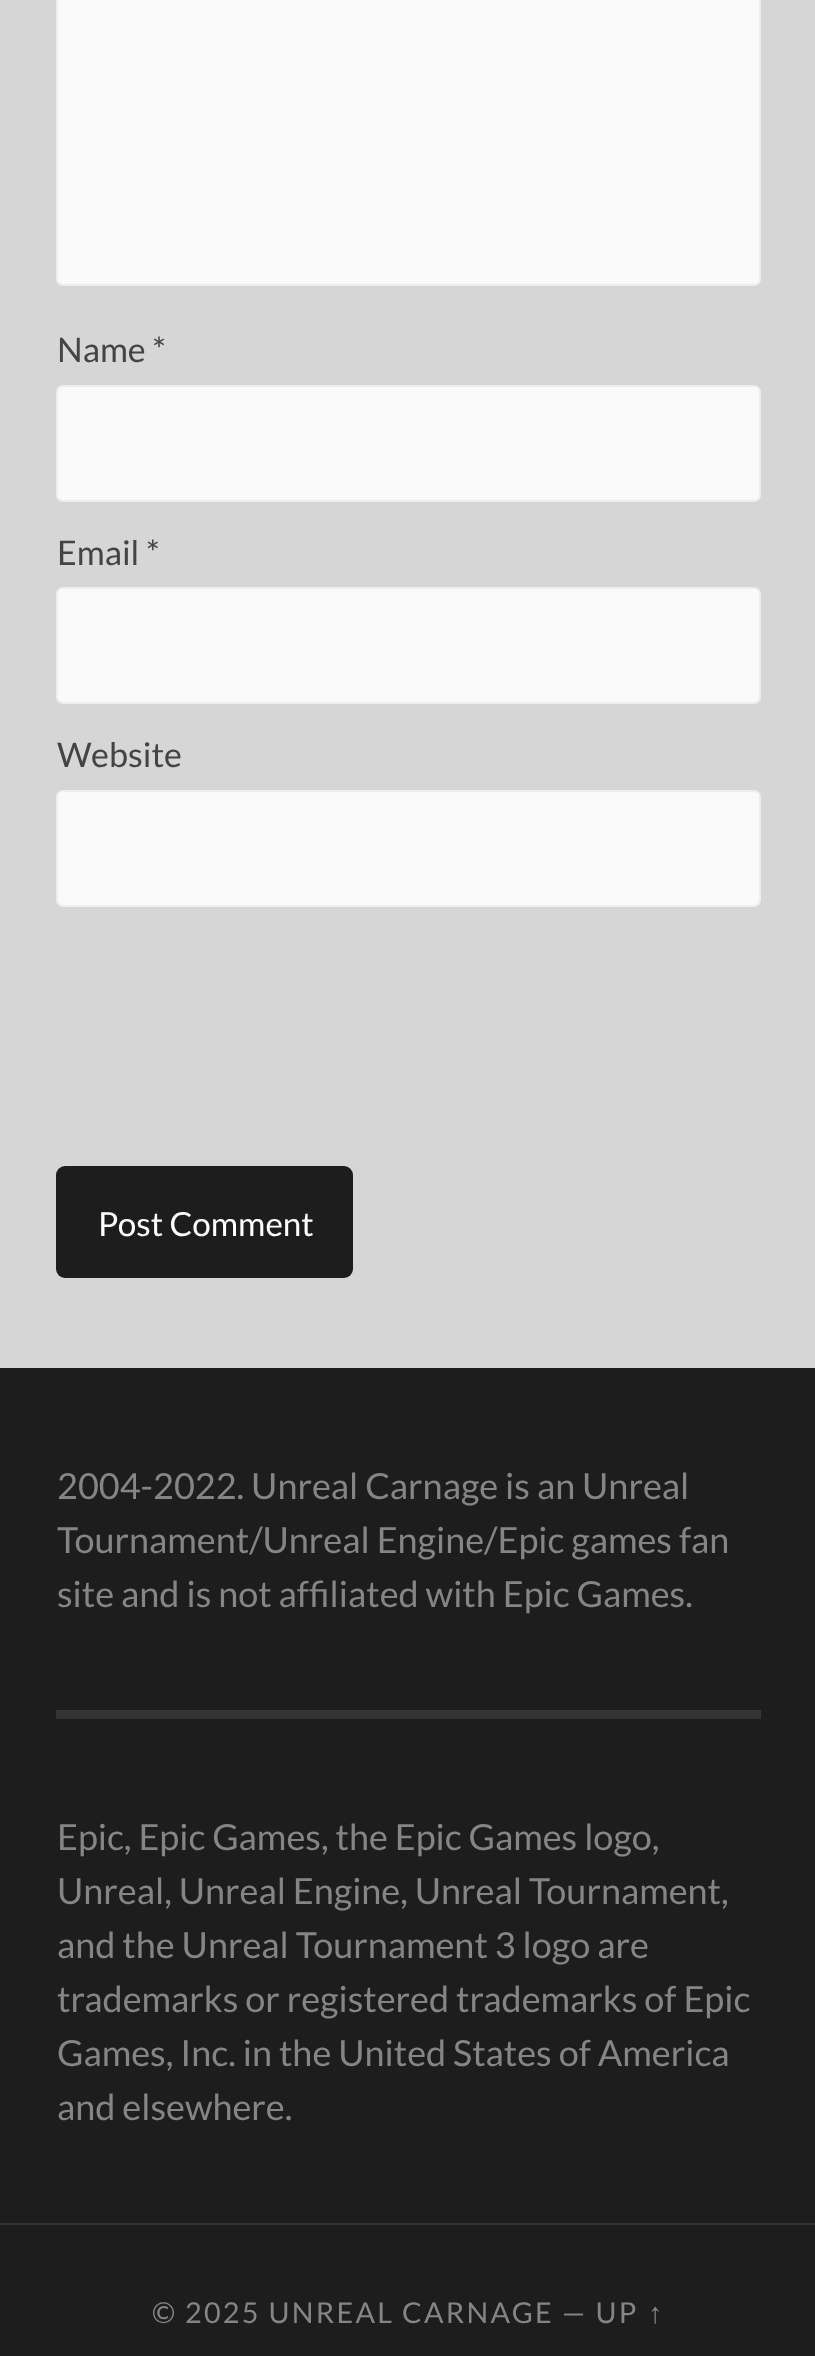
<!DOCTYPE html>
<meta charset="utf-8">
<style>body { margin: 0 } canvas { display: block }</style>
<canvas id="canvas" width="815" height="2356"></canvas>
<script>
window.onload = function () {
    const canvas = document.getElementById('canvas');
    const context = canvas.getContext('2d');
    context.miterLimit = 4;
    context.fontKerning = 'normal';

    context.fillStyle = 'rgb(214, 214, 214)';
    context.fillRect(0, 0, 815, 2356);
    context.fillStyle = 'rgb(250, 250, 250)';
    context.beginPath();
    context.roundRect(57, -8, 703, 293, 6);
    context.fill();
    context.strokeStyle = 'rgb(238, 238, 238)';
    context.lineWidth = 2;
    context.stroke();
    context.beginPath();
    context.roundRect(57, 386, 703, 115, 6);
    context.fill();
    context.stroke();
    context.beginPath();
    context.roundRect(57, 588, 703, 115, 6);
    context.fill();
    context.stroke();
    context.beginPath();
    context.roundRect(57, 791, 703, 115, 6);
    context.fill();
    context.stroke();
    context.fillStyle = 'rgb(29, 29, 29)';
    context.beginPath();
    context.roundRect(56, 1166, 297, 112, 9);
    context.fill();
    context.fillRect(0, 1368, 815, 855);
    context.fillStyle = 'rgb(52, 52, 52)';
    context.fillRect(56, 1710, 705, 9);
    context.fillStyle = 'rgb(29, 29, 29)';
    context.fillRect(0, 2225, 815, 131);
    context.fillStyle = 'rgb(52, 52, 52)';
    context.fillRect(0, 2223, 815, 2);
    context.font = '34px Lato';
    context.fillStyle = 'rgb(68, 68, 68)';
    context.fillText('Name *', 57, 362);
    context.fillText('Email *', 57, 565);
    context.fillText('Website', 57, 767);
    context.font = '33.25px Lato';
    context.fillStyle = 'rgb(255, 255, 255)';
    context.fillText('Post Comment', 98, 1236);
    context.font = '36px Lato';
    context.fillStyle = 'rgb(133, 133, 133)';
    context.fillText('2004-2022. Unreal Carnage is an Unreal', 57, 1499);
    context.fillText('Tournament/Unreal Engine/Epic games fan', 57, 1553);
    context.fillText('site and is not affiliated with Epic Games.', 57, 1607);
    context.fillText('Epic, Epic Games, the Epic Games logo,', 57, 1850);
    context.fillText('Unreal, Unreal Engine, Unreal Tournament,', 57, 1904);
    context.fillText('and the Unreal Tournament 3 logo are', 57, 1958);
    context.fillText('trademarks or registered trademarks of Epic', 57, 2012);
    context.fillText('Games, Inc. in the United States of America', 57, 2066);
    context.fillText('and elsewhere.', 57, 2120);
    context.letterSpacing = '2.25px';
    context.font = '28.75px Lato';
    context.fillText('© 2025 UNREAL CARNAGE — UP', 152, 2323);
    context.font = '28.75px Liberation Sans';
    context.fillText('↑', 648, 2323);
};
</script>
